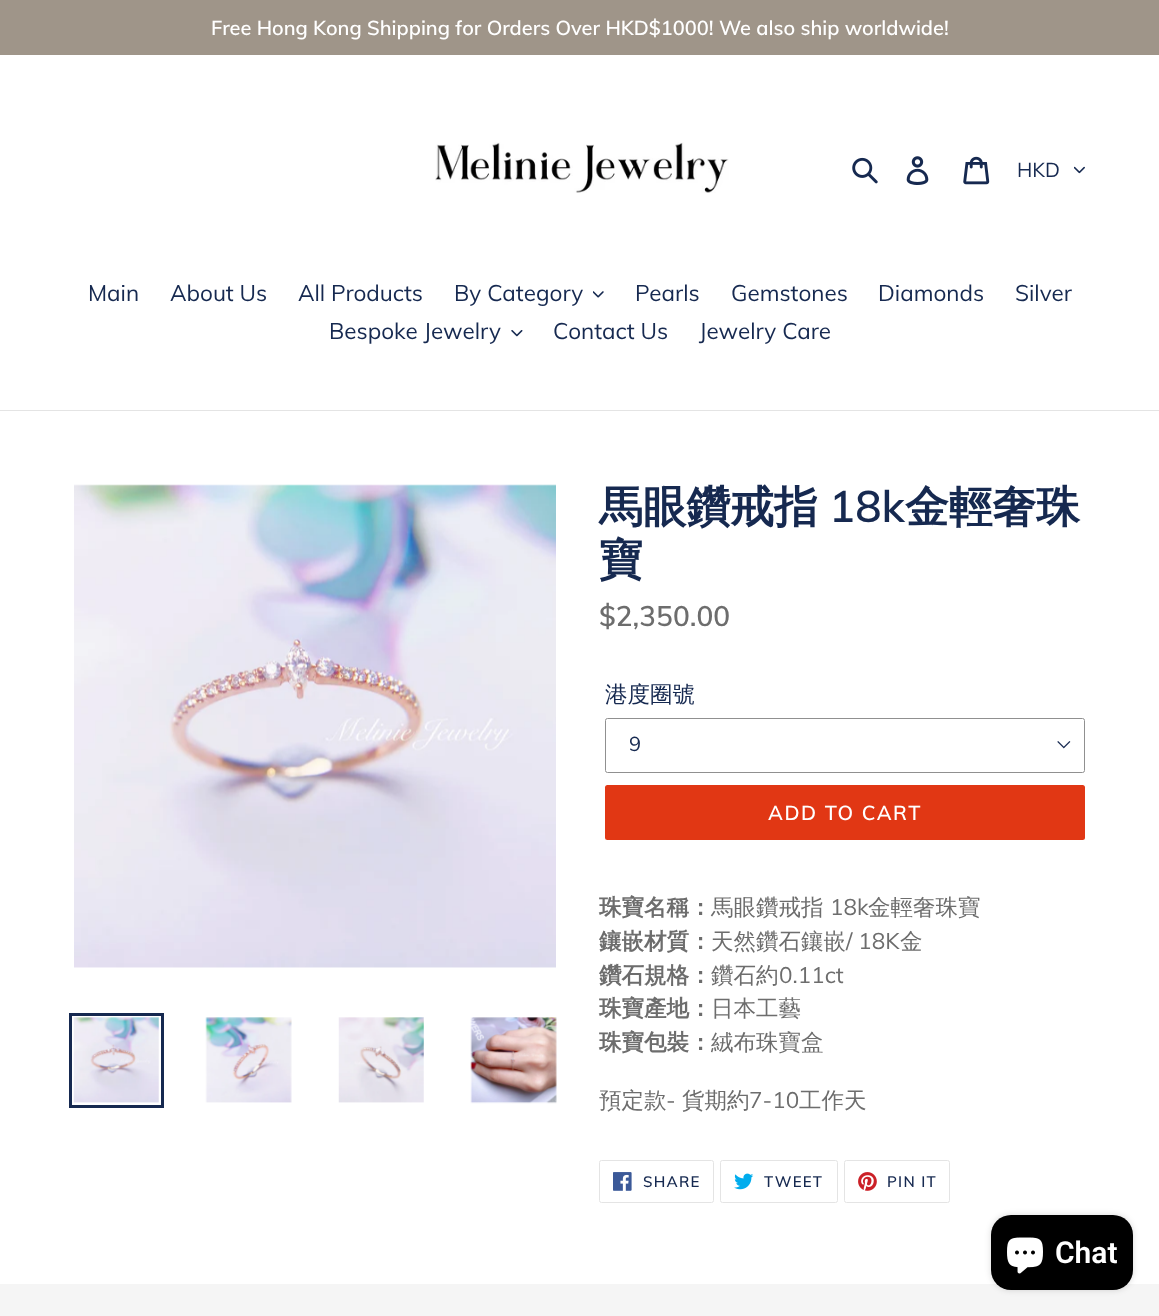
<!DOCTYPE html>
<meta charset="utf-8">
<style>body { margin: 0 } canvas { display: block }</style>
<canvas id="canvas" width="1159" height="1316"></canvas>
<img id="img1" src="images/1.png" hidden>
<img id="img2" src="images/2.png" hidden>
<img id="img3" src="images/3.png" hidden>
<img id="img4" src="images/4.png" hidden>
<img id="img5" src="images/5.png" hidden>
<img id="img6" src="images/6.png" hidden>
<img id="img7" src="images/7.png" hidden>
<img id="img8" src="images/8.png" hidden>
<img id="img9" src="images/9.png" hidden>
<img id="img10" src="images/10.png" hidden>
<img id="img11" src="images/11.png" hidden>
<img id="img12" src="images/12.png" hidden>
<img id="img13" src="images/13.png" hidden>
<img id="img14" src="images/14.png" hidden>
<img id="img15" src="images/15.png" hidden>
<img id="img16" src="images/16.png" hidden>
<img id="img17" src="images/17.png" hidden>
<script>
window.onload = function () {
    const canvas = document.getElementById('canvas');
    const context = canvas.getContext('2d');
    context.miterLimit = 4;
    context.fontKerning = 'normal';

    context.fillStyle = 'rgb(255, 255, 255)';
    context.fillRect(0, 0, 1159, 1316);
    context.fillStyle = 'rgb(159, 149, 137)';
    context.fillRect(0, 0, 1159, 55);
    context.drawImage(document.getElementById('img1'), 435, 142, 294, 51);
    context.drawImage(document.getElementById('img2'), 852, 157, 26, 27);
    context.drawImage(document.getElementById('img3'), 906, 156, 23, 29);
    context.drawImage(document.getElementById('img4'), 963, 156, 27, 29);
    context.drawImage(document.getElementById('img5'), 1074, 166, 11, 8);
    context.fillStyle = 'rgb(228, 228, 228)';
    context.fillRect(0, 410, 1159, 1);
    context.drawImage(document.getElementById('img6'), 593, 291, 11, 7);
    context.drawImage(document.getElementById('img7'), 511, 330, 12, 7);
    context.drawImage(document.getElementById('img8'), 74, 484, 482, 484);
    context.strokeStyle = 'rgb(22, 41, 80)';
    context.lineWidth = 3;
    context.strokeRect(70.5, 1014.5, 92, 92);
    context.drawImage(document.getElementById('img9'), 73, 1017, 86, 86);
    context.drawImage(document.getElementById('img10'), 205, 1017, 87, 86);
    context.drawImage(document.getElementById('img11'), 338, 1017, 86, 86);
    context.drawImage(document.getElementById('img12'), 470, 1017, 87, 87);
    context.drawImage(document.getElementById('img13'), 1057, 741, 14, 8);
    context.beginPath();
    context.roundRect(605.5, 718.5, 479, 54, 2);
    context.strokeStyle = 'rgb(144, 144, 144)';
    context.lineWidth = 1;
    context.stroke();
    context.fillStyle = 'rgb(225, 55, 20)';
    context.beginPath();
    context.roundRect(605, 785, 480, 55, 2.5);
    context.fill();
    context.beginPath();
    context.roundRect(599.5, 1160.5, 114, 42, 2);
    context.strokeStyle = 'rgb(228, 228, 228)';
    context.stroke();
    context.drawImage(document.getElementById('img14'), 613, 1172, 19, 19);
    context.beginPath();
    context.roundRect(720.5, 1160.5, 117, 42, 2);
    context.stroke();
    context.drawImage(document.getElementById('img15'), 734, 1173, 20, 17);
    context.beginPath();
    context.roundRect(844.5, 1160.5, 105, 42, 2);
    context.stroke();
    context.drawImage(document.getElementById('img16'), 858, 1172, 19, 19);
    context.fillStyle = 'rgb(245, 245, 245)';
    context.fillRect(0, 1284, 1159, 32);
    context.fillStyle = 'rgba(0, 0, 0, 0.15)';
    context.filter = 'blur(3px)';
    context.beginPath();
    context.roundRect(991, 1215, 142, 75, 20);
    context.fill();
    context.filter = 'none';
    context.fillStyle = 'rgb(0, 0, 0)';
    context.beginPath();
    context.roundRect(991, 1215, 142, 75, 20);
    context.fill();
    context.drawImage(document.getElementById('img17'), 1007, 1237, 36, 37);
    context.font = '600 20px Muli';
    context.fillStyle = 'rgb(255, 255, 255)';
    context.fillText('Free Hong Kong Shipping for Orders Over HKD$1000! We also ship worldwide!', 211, 35);
    context.font = '20px Muli';
    context.fillStyle = 'rgb(22, 41, 80)';
    context.fillText('HKD', 1017, 177);
    context.font = '22.5px Muli';
    context.fillText('Main', 88, 301);
    context.fillText('About Us', 170, 301);
    context.fillText('All Products', 298, 301);
    context.fillText('By Category', 454, 301);
    context.fillText('Pearls', 635, 301);
    context.fillText('Gemstones', 731, 301);
    context.fillText('Diamonds', 878, 301);
    context.fillText('Silver', 1015, 301);
    context.fillText('Bespoke Jewelry', 329, 339);
    context.fillText('Contact Us', 553, 339);
    context.fillText('Jewelry Care', 699, 339);
    context.font = 'bold 43.75px WenQuanYi Zen Hei';
    context.fillText('馬眼鑽戒指', 599, 522);
    context.font = '600 43.75px Muli';
    context.fillText('18k', 829, 522);
    context.font = 'bold 43.75px WenQuanYi Zen Hei';
    context.fillText('金輕奢珠', 905, 522);
    context.fillText('寶', 599, 575);
    context.font = '600 28px Muli';
    context.fillStyle = 'rgb(109, 109, 109)';
    context.fillText('$2,350.00', 599, 626);
    context.font = '500 22.5px WenQuanYi Zen Hei';
    context.fillStyle = 'rgb(22, 41, 80)';
    context.fillText('港度圈號', 605, 702);
    context.font = '20px Muli';
    context.fillText('9', 629, 751);
    context.letterSpacing = '1.6px';
    context.font = '600 20px Muli';
    context.fillStyle = 'rgb(255, 255, 255)';
    context.fillText('ADD TO CART', 768, 820);
    context.letterSpacing = '0px';
    context.font = 'bold 22.5px WenQuanYi Zen Hei';
    context.fillStyle = 'rgb(109, 109, 109)';
    context.fillText('珠寶名稱：', 599, 915);
    context.font = '500 22.5px WenQuanYi Zen Hei';
    context.fillText('馬眼鑽戒指', 711, 915);
    context.font = '22.5px Muli';
    context.fillText('18k', 830, 915);
    context.font = '500 22.5px WenQuanYi Zen Hei';
    context.fillText('金輕奢珠寶', 868, 915);
    context.font = 'bold 22.5px WenQuanYi Zen Hei';
    context.fillText('鑲嵌材質：', 599, 949);
    context.font = '500 22.5px WenQuanYi Zen Hei';
    context.fillText('天然鑽石鑲嵌', 711, 949);
    context.font = '22.5px Muli';
    context.fillText('/ 18K', 846, 949);
    context.font = '500 22.5px WenQuanYi Zen Hei';
    context.fillText('金', 900, 949);
    context.font = 'bold 22.5px WenQuanYi Zen Hei';
    context.fillText('鑽石規格：', 599, 983);
    context.font = '500 22.5px WenQuanYi Zen Hei';
    context.fillText('鑽石約', 711, 983);
    context.font = '22.5px Muli';
    context.fillText('0.11ct', 779, 983);
    context.font = 'bold 22.5px WenQuanYi Zen Hei';
    context.fillText('珠寶產地：', 599, 1016);
    context.font = '500 22.5px WenQuanYi Zen Hei';
    context.fillText('日本工藝', 711, 1016);
    context.font = 'bold 22.5px WenQuanYi Zen Hei';
    context.fillText('珠寶包裝：', 599, 1050);
    context.font = '500 22.5px WenQuanYi Zen Hei';
    context.fillText('絨布珠寶盒', 711, 1050);
    context.fillText('預定款', 599, 1108);
    context.font = '22.5px Muli';
    context.fillText('-', 666, 1108);
    context.font = '500 22.5px WenQuanYi Zen Hei';
    context.fillText('貨期約', 682, 1108);
    context.font = '22.5px Muli';
    context.fillText('7-10', 749, 1108);
    context.font = '500 22.5px WenQuanYi Zen Hei';
    context.fillText('工作天', 799, 1108);
    context.letterSpacing = '1.25px';
    context.font = '600 15px Muli';
    context.fillStyle = 'rgb(22, 41, 80)';
    context.fillText('SHARE', 643, 1187);
    context.fillText('TWEET', 764, 1187);
    context.fillText('PIN IT', 887, 1187);
    context.letterSpacing = '0px';
    context.font = '600 30px Roboto';
    context.fillStyle = 'rgb(255, 255, 255)';
    context.fillText('Chat', 1055, 1263);
};
</script>
